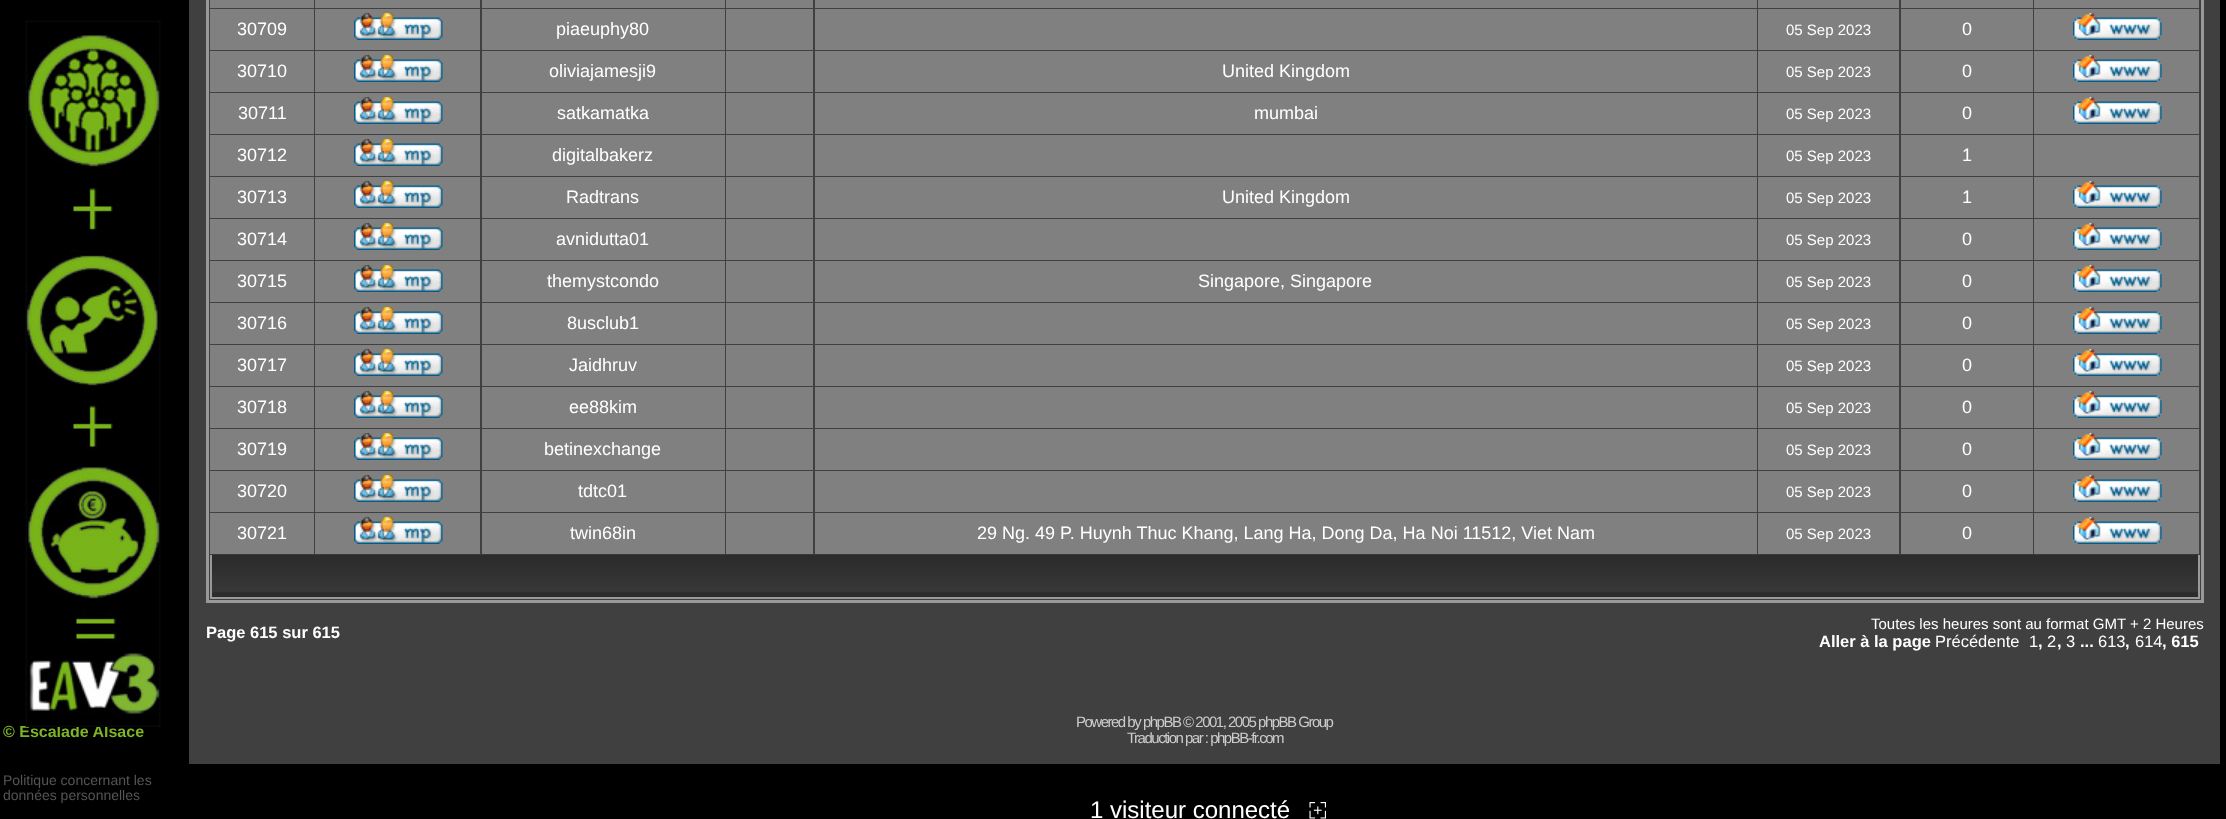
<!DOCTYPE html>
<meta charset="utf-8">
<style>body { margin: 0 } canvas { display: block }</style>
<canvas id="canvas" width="2226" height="819"></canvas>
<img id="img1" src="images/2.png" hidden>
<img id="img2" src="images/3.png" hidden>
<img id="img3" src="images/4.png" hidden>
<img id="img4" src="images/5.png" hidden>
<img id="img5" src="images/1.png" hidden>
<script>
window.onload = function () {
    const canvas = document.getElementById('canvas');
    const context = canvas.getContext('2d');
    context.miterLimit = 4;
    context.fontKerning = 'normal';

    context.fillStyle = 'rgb(0, 0, 0)';
    context.fillRect(0, 0, 2226, 819);
    context.fillStyle = 'rgb(64, 64, 64)';
    context.fillRect(189, 0, 2031, 764);
    context.strokeStyle = 'rgb(153, 153, 153)';
    context.lineWidth = 3;
    context.strokeRect(207.5, -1.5, 1995, 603);
    context.fillStyle = 'rgb(128, 128, 128)';
    context.fillRect(210, 0, 104, 8);
    context.fillRect(315, 0, 165, 8);
    context.fillRect(482, 0, 243, 8);
    context.fillRect(726, 0, 87, 8);
    context.fillRect(815, 0, 942, 8);
    context.fillRect(1758, 0, 141, 8);
    context.fillRect(1901, 0, 132, 8);
    context.fillRect(2034, 0, 165, 8);
    context.fillRect(210, 9, 104, 41);
    context.fillRect(315, 9, 165, 41);
    context.drawImage(document.getElementById('img1'), 354, 13, 89, 27);
    context.fillRect(482, 9, 243, 41);
    context.fillRect(726, 9, 87, 41);
    context.fillRect(815, 9, 942, 41);
    context.fillRect(1758, 9, 141, 41);
    context.fillRect(1901, 9, 132, 41);
    context.fillRect(2034, 9, 165, 41);
    context.drawImage(document.getElementById('img2'), 2073, 13, 89, 27);
    context.fillRect(210, 51, 104, 41);
    context.fillRect(315, 51, 165, 41);
    context.drawImage(document.getElementById('img1'), 354, 55, 89, 27);
    context.fillRect(482, 51, 243, 41);
    context.fillRect(726, 51, 87, 41);
    context.fillRect(815, 51, 942, 41);
    context.fillRect(1758, 51, 141, 41);
    context.fillRect(1901, 51, 132, 41);
    context.fillRect(2034, 51, 165, 41);
    context.drawImage(document.getElementById('img2'), 2073, 55, 89, 27);
    context.fillRect(210, 93, 104, 41);
    context.fillRect(315, 93, 165, 41);
    context.drawImage(document.getElementById('img1'), 354, 97, 89, 27);
    context.fillRect(482, 93, 243, 41);
    context.fillRect(726, 93, 87, 41);
    context.fillRect(815, 93, 942, 41);
    context.fillRect(1758, 93, 141, 41);
    context.fillRect(1901, 93, 132, 41);
    context.fillRect(2034, 93, 165, 41);
    context.drawImage(document.getElementById('img2'), 2073, 97, 89, 27);
    context.fillRect(210, 135, 104, 41);
    context.fillRect(315, 135, 165, 41);
    context.drawImage(document.getElementById('img1'), 354, 139, 89, 27);
    context.fillRect(482, 135, 243, 41);
    context.fillRect(726, 135, 87, 41);
    context.fillRect(815, 135, 942, 41);
    context.fillRect(1758, 135, 141, 41);
    context.fillRect(1901, 135, 132, 41);
    context.fillRect(2034, 135, 165, 41);
    context.fillRect(210, 177, 104, 41);
    context.fillRect(315, 177, 165, 41);
    context.drawImage(document.getElementById('img1'), 354, 181, 89, 27);
    context.fillRect(482, 177, 243, 41);
    context.fillRect(726, 177, 87, 41);
    context.fillRect(815, 177, 942, 41);
    context.fillRect(1758, 177, 141, 41);
    context.fillRect(1901, 177, 132, 41);
    context.fillRect(2034, 177, 165, 41);
    context.drawImage(document.getElementById('img2'), 2073, 181, 89, 27);
    context.fillRect(210, 219, 104, 41);
    context.fillRect(315, 219, 165, 41);
    context.drawImage(document.getElementById('img1'), 354, 223, 89, 27);
    context.fillRect(482, 219, 243, 41);
    context.fillRect(726, 219, 87, 41);
    context.fillRect(815, 219, 942, 41);
    context.fillRect(1758, 219, 141, 41);
    context.fillRect(1901, 219, 132, 41);
    context.fillRect(2034, 219, 165, 41);
    context.drawImage(document.getElementById('img2'), 2073, 223, 89, 27);
    context.fillRect(210, 261, 104, 41);
    context.fillRect(315, 261, 165, 41);
    context.drawImage(document.getElementById('img1'), 354, 265, 89, 27);
    context.fillRect(482, 261, 243, 41);
    context.fillRect(726, 261, 87, 41);
    context.fillRect(815, 261, 942, 41);
    context.fillRect(1758, 261, 141, 41);
    context.fillRect(1901, 261, 132, 41);
    context.fillRect(2034, 261, 165, 41);
    context.drawImage(document.getElementById('img2'), 2073, 265, 89, 27);
    context.fillRect(210, 303, 104, 41);
    context.fillRect(315, 303, 165, 41);
    context.drawImage(document.getElementById('img1'), 354, 307, 89, 27);
    context.fillRect(482, 303, 243, 41);
    context.fillRect(726, 303, 87, 41);
    context.fillRect(815, 303, 942, 41);
    context.fillRect(1758, 303, 141, 41);
    context.fillRect(1901, 303, 132, 41);
    context.fillRect(2034, 303, 165, 41);
    context.drawImage(document.getElementById('img2'), 2073, 307, 89, 27);
    context.fillRect(210, 345, 104, 41);
    context.fillRect(315, 345, 165, 41);
    context.drawImage(document.getElementById('img1'), 354, 349, 89, 27);
    context.fillRect(482, 345, 243, 41);
    context.fillRect(726, 345, 87, 41);
    context.fillRect(815, 345, 942, 41);
    context.fillRect(1758, 345, 141, 41);
    context.fillRect(1901, 345, 132, 41);
    context.fillRect(2034, 345, 165, 41);
    context.drawImage(document.getElementById('img2'), 2073, 349, 89, 27);
    context.fillRect(210, 387, 104, 41);
    context.fillRect(315, 387, 165, 41);
    context.drawImage(document.getElementById('img1'), 354, 391, 89, 27);
    context.fillRect(482, 387, 243, 41);
    context.fillRect(726, 387, 87, 41);
    context.fillRect(815, 387, 942, 41);
    context.fillRect(1758, 387, 141, 41);
    context.fillRect(1901, 387, 132, 41);
    context.fillRect(2034, 387, 165, 41);
    context.drawImage(document.getElementById('img2'), 2073, 391, 89, 27);
    context.fillRect(210, 429, 104, 41);
    context.fillRect(315, 429, 165, 41);
    context.drawImage(document.getElementById('img1'), 354, 433, 89, 27);
    context.fillRect(482, 429, 243, 41);
    context.fillRect(726, 429, 87, 41);
    context.fillRect(815, 429, 942, 41);
    context.fillRect(1758, 429, 141, 41);
    context.fillRect(1901, 429, 132, 41);
    context.fillRect(2034, 429, 165, 41);
    context.drawImage(document.getElementById('img2'), 2073, 433, 89, 27);
    context.fillRect(210, 471, 104, 41);
    context.fillRect(315, 471, 165, 41);
    context.drawImage(document.getElementById('img1'), 354, 475, 89, 27);
    context.fillRect(482, 471, 243, 41);
    context.fillRect(726, 471, 87, 41);
    context.fillRect(815, 471, 942, 41);
    context.fillRect(1758, 471, 141, 41);
    context.fillRect(1901, 471, 132, 41);
    context.fillRect(2034, 471, 165, 41);
    context.drawImage(document.getElementById('img2'), 2073, 475, 89, 27);
    context.fillRect(210, 513, 104, 41);
    context.fillRect(315, 513, 165, 41);
    context.drawImage(document.getElementById('img1'), 354, 517, 89, 27);
    context.fillRect(482, 513, 243, 41);
    context.fillRect(726, 513, 87, 41);
    context.fillRect(815, 513, 942, 41);
    context.fillRect(1758, 513, 141, 41);
    context.fillRect(1901, 513, 132, 41);
    context.fillRect(2034, 513, 165, 41);
    context.drawImage(document.getElementById('img2'), 2073, 517, 89, 27);
    context.drawImage(document.getElementById('img3'), 210, 554, 1989, 43);
    context.fillStyle = 'rgb(153, 153, 153)';
    context.fillRect(2198, 555, 2, 44);
    context.fillRect(210, 597, 1989, 2);
    context.fillRect(210, 555, 2, 44);
    context.drawImage(document.getElementById('img4'), 1309, 802, 17, 17);
    context.font = 'bold 16px Liberation Sans';
    context.fillStyle = 'rgb(126, 181, 36)';
    context.fillText('© Escalade Alsace', 3, 737);
    context.drawImage(document.getElementById('img5'), 25, 20, 136, 707);
    context.font = '14px Liberation Sans';
    context.fillStyle = 'rgb(85, 85, 85)';
    context.fillText('Politique concernant les', 3, 785);
    context.fillText('données personnelles', 3, 800);
    context.font = '18px Liberation Sans';
    context.fillStyle = 'rgb(255, 255, 255)';
    context.fillText('30709', 237, 35);
    context.fillText('piaeuphy80', 556, 35);
    context.font = '15px Liberation Sans';
    context.fillText('05 Sep 2023', 1786, 35);
    context.font = '18px Liberation Sans';
    context.fillText('0', 1962, 35);
    context.fillText('30710', 237, 77);
    context.fillText('oliviajamesji9', 549, 77);
    context.fillText('United Kingdom', 1222, 77);
    context.font = '15px Liberation Sans';
    context.fillText('05 Sep 2023', 1786, 77);
    context.font = '18px Liberation Sans';
    context.fillText('0', 1962, 77);
    context.fillText('30711', 238, 119);
    context.fillText('satkamatka', 557, 119);
    context.fillText('mumbai', 1254, 119);
    context.font = '15px Liberation Sans';
    context.fillText('05 Sep 2023', 1786, 119);
    context.font = '18px Liberation Sans';
    context.fillText('0', 1962, 119);
    context.fillText('30712', 237, 161);
    context.fillText('digitalbakerz', 552, 161);
    context.font = '15px Liberation Sans';
    context.fillText('05 Sep 2023', 1786, 161);
    context.font = '18px Liberation Sans';
    context.fillText('1', 1962, 161);
    context.fillText('30713', 237, 203);
    context.fillText('Radtrans', 566, 203);
    context.fillText('United Kingdom', 1222, 203);
    context.font = '15px Liberation Sans';
    context.fillText('05 Sep 2023', 1786, 203);
    context.font = '18px Liberation Sans';
    context.fillText('1', 1962, 203);
    context.fillText('30714', 237, 245);
    context.fillText('avnidutta01', 556, 245);
    context.font = '15px Liberation Sans';
    context.fillText('05 Sep 2023', 1786, 245);
    context.font = '18px Liberation Sans';
    context.fillText('0', 1962, 245);
    context.fillText('30715', 237, 287);
    context.fillText('themystcondo', 547, 287);
    context.fillText('Singapore, Singapore', 1198, 287);
    context.font = '15px Liberation Sans';
    context.fillText('05 Sep 2023', 1786, 287);
    context.font = '18px Liberation Sans';
    context.fillText('0', 1962, 287);
    context.fillText('30716', 237, 329);
    context.fillText('8usclub1', 567, 329);
    context.font = '15px Liberation Sans';
    context.fillText('05 Sep 2023', 1786, 329);
    context.font = '18px Liberation Sans';
    context.fillText('0', 1962, 329);
    context.fillText('30717', 237, 371);
    context.fillText('Jaidhruv', 569, 371);
    context.font = '15px Liberation Sans';
    context.fillText('05 Sep 2023', 1786, 371);
    context.font = '18px Liberation Sans';
    context.fillText('0', 1962, 371);
    context.fillText('30718', 237, 413);
    context.fillText('ee88kim', 569, 413);
    context.font = '15px Liberation Sans';
    context.fillText('05 Sep 2023', 1786, 413);
    context.font = '18px Liberation Sans';
    context.fillText('0', 1962, 413);
    context.fillText('30719', 237, 455);
    context.fillText('betinexchange', 544, 455);
    context.font = '15px Liberation Sans';
    context.fillText('05 Sep 2023', 1786, 455);
    context.font = '18px Liberation Sans';
    context.fillText('0', 1962, 455);
    context.fillText('30720', 237, 497);
    context.fillText('tdtc01', 578, 497);
    context.font = '15px Liberation Sans';
    context.fillText('05 Sep 2023', 1786, 497);
    context.font = '18px Liberation Sans';
    context.fillText('0', 1962, 497);
    context.fillText('30721', 237, 539);
    context.fillText('twin68in', 570, 539);
    context.fillText('29 Ng. 49 P. Huynh Thuc Khang, Lang Ha, Dong Da, Ha Noi 11512, Viet Nam', 977, 539);
    context.font = '15px Liberation Sans';
    context.fillText('05 Sep 2023', 1786, 539);
    context.font = '18px Liberation Sans';
    context.fillText('0', 1962, 539);
    context.font = 'bold 16.5px Liberation Sans';
    context.fillText('Page 615 sur 615', 206, 638);
    context.font = '15px Liberation Sans';
    context.fillText('Toutes les heures sont au format GMT + 2 Heures', 1871, 629);
    context.font = 'bold 16.5px Liberation Sans';
    context.fillText('Aller à la page', 1819, 647);
    context.font = '16.5px Liberation Sans';
    context.fillText('Précédente', 1935, 647);
    context.fillText('1', 2029, 647);
    context.font = 'bold 16.5px Liberation Sans';
    context.fillText(',', 2038, 647);
    context.font = '16.5px Liberation Sans';
    context.fillText('2', 2047, 647);
    context.font = 'bold 16.5px Liberation Sans';
    context.fillText(',', 2057, 647);
    context.font = '16.5px Liberation Sans';
    context.fillText('3', 2066, 647);
    context.font = 'bold 16.5px Liberation Sans';
    context.fillText('...', 2080, 647);
    context.font = '16.5px Liberation Sans';
    context.fillText('613', 2098, 647);
    context.font = 'bold 16.5px Liberation Sans';
    context.fillText(',', 2125, 647);
    context.font = '16.5px Liberation Sans';
    context.fillText('614', 2135, 647);
    context.font = 'bold 16.5px Liberation Sans';
    context.fillText(', 615', 2162, 647);
    context.letterSpacing = '-1.5px';
    context.font = '15px Liberation Sans';
    context.fillStyle = 'rgb(204, 204, 204)';
    context.fillText('Powered by phpBB © 2001, 2005 phpBB Group', 1076, 727);
    context.fillText('Traduction par : phpBB-fr.com', 1127, 743);
    context.letterSpacing = '0px';
    context.font = '24px Liberation Sans';
    context.fillStyle = 'rgb(255, 255, 255)';
    context.fillText('1 visiteur connecté', 1090, 818);
};
</script>
